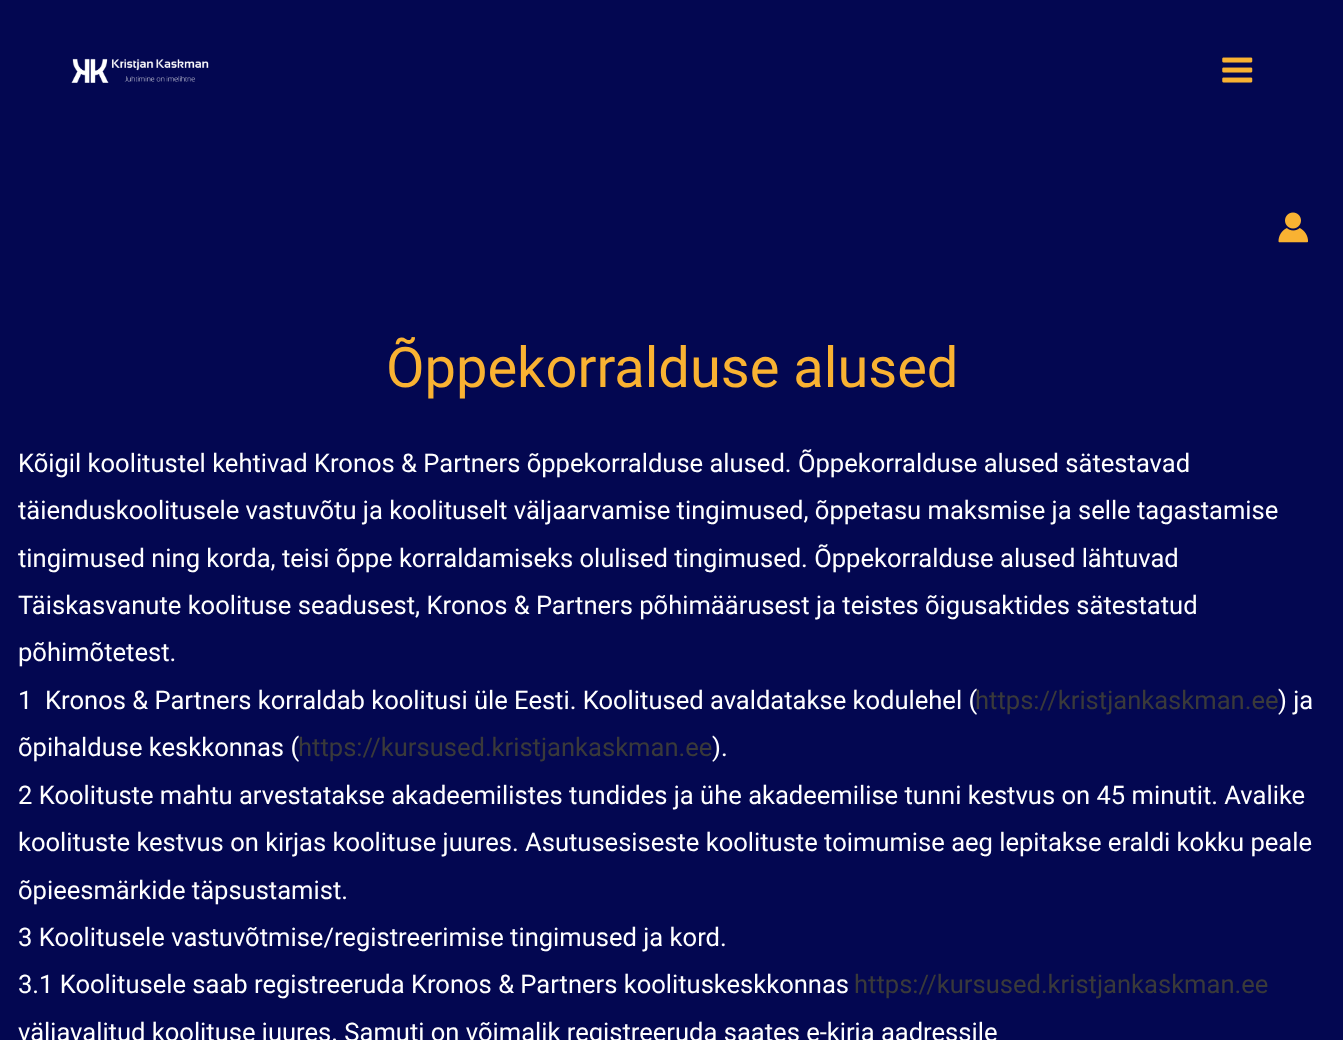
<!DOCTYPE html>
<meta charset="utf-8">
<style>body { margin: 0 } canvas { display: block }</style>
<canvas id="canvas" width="1343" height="1040"></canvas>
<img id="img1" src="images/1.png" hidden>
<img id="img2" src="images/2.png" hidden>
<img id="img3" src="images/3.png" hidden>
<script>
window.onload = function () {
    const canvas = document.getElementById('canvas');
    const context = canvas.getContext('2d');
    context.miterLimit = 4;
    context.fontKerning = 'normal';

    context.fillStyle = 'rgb(3, 7, 81)';
    context.fillRect(0, 0, 1343, 1040);
    context.drawImage(document.getElementById('img1'), 71, 58, 138, 25);
    context.drawImage(document.getElementById('img2'), 1222, 57, 31, 26);
    context.drawImage(document.getElementById('img3'), 1278, 212, 30, 31);
    context.font = '56px Roboto';
    context.fillStyle = 'rgb(249, 178, 50)';
    context.fillText('Õppekorralduse alused', 386, 387);
    context.font = '25.55px Roboto';
    context.fillStyle = 'rgb(255, 255, 255)';
    context.fillText('Kõigil koolitustel kehtivad Kronos & Partners õppekorralduse alused. Õppekorralduse alused sätestavad', 18, 472);
    context.fillText('täienduskoolitusele vastuvõtu ja koolituselt väljaarvamise tingimused, õppetasu maksmise ja selle tagastamise', 18, 519);
    context.fillText('tingimused ning korda, teisi õppe korraldamiseks olulised tingimused. Õppekorralduse alused lähtuvad', 18, 567);
    context.fillText('Täiskasvanute koolituse seadusest, Kronos & Partners põhimäärusest ja teistes õigusaktides sätestatud', 18, 614);
    context.fillText('põhimõtetest.', 18, 661);
    context.fillText('1  Kronos & Partners korraldab koolitusi üle Eesti. Koolitused avaldatakse kodulehel (', 18, 709);
    context.fillStyle = 'rgb(58, 58, 58)';
    context.fillText('https://kristjankaskman.ee', 975, 709);
    context.fillStyle = 'rgb(255, 255, 255)';
    context.fillText(') ja', 1278, 709);
    context.fillText('õpihalduse keskkonnas (', 18, 756);
    context.fillStyle = 'rgb(58, 58, 58)';
    context.fillText('https://kursused.kristjankaskman.ee', 298, 756);
    context.fillStyle = 'rgb(255, 255, 255)';
    context.fillText(').', 712, 756);
    context.fillText('2 Koolituste mahtu arvestatakse akadeemilistes tundides ja ühe akadeemilise tunni kestvus on 45 minutit. Avalike', 18, 804);
    context.fillText('koolituste kestvus on kirjas koolituse juures. Asutusesiseste koolituste toimumise aeg lepitakse eraldi kokku peale', 18, 851);
    context.fillText('õpieesmärkide täpsustamist.', 18, 899);
    context.fillText('3 Koolitusele vastuvõtmise/registreerimise tingimused ja kord.', 18, 946);
    context.fillText('3.1 Koolitusele saab registreeruda Kronos & Partners koolituskeskkonnas', 18, 993);
    context.fillStyle = 'rgb(58, 58, 58)';
    context.fillText('https://kursused.kristjankaskman.ee', 854, 993);
    context.fillStyle = 'rgb(255, 255, 255)';
    context.fillText('väljavalitud koolituse juures. Samuti on võimalik registreeruda saates e-kirja aadressile', 18, 1041);
};
</script>
